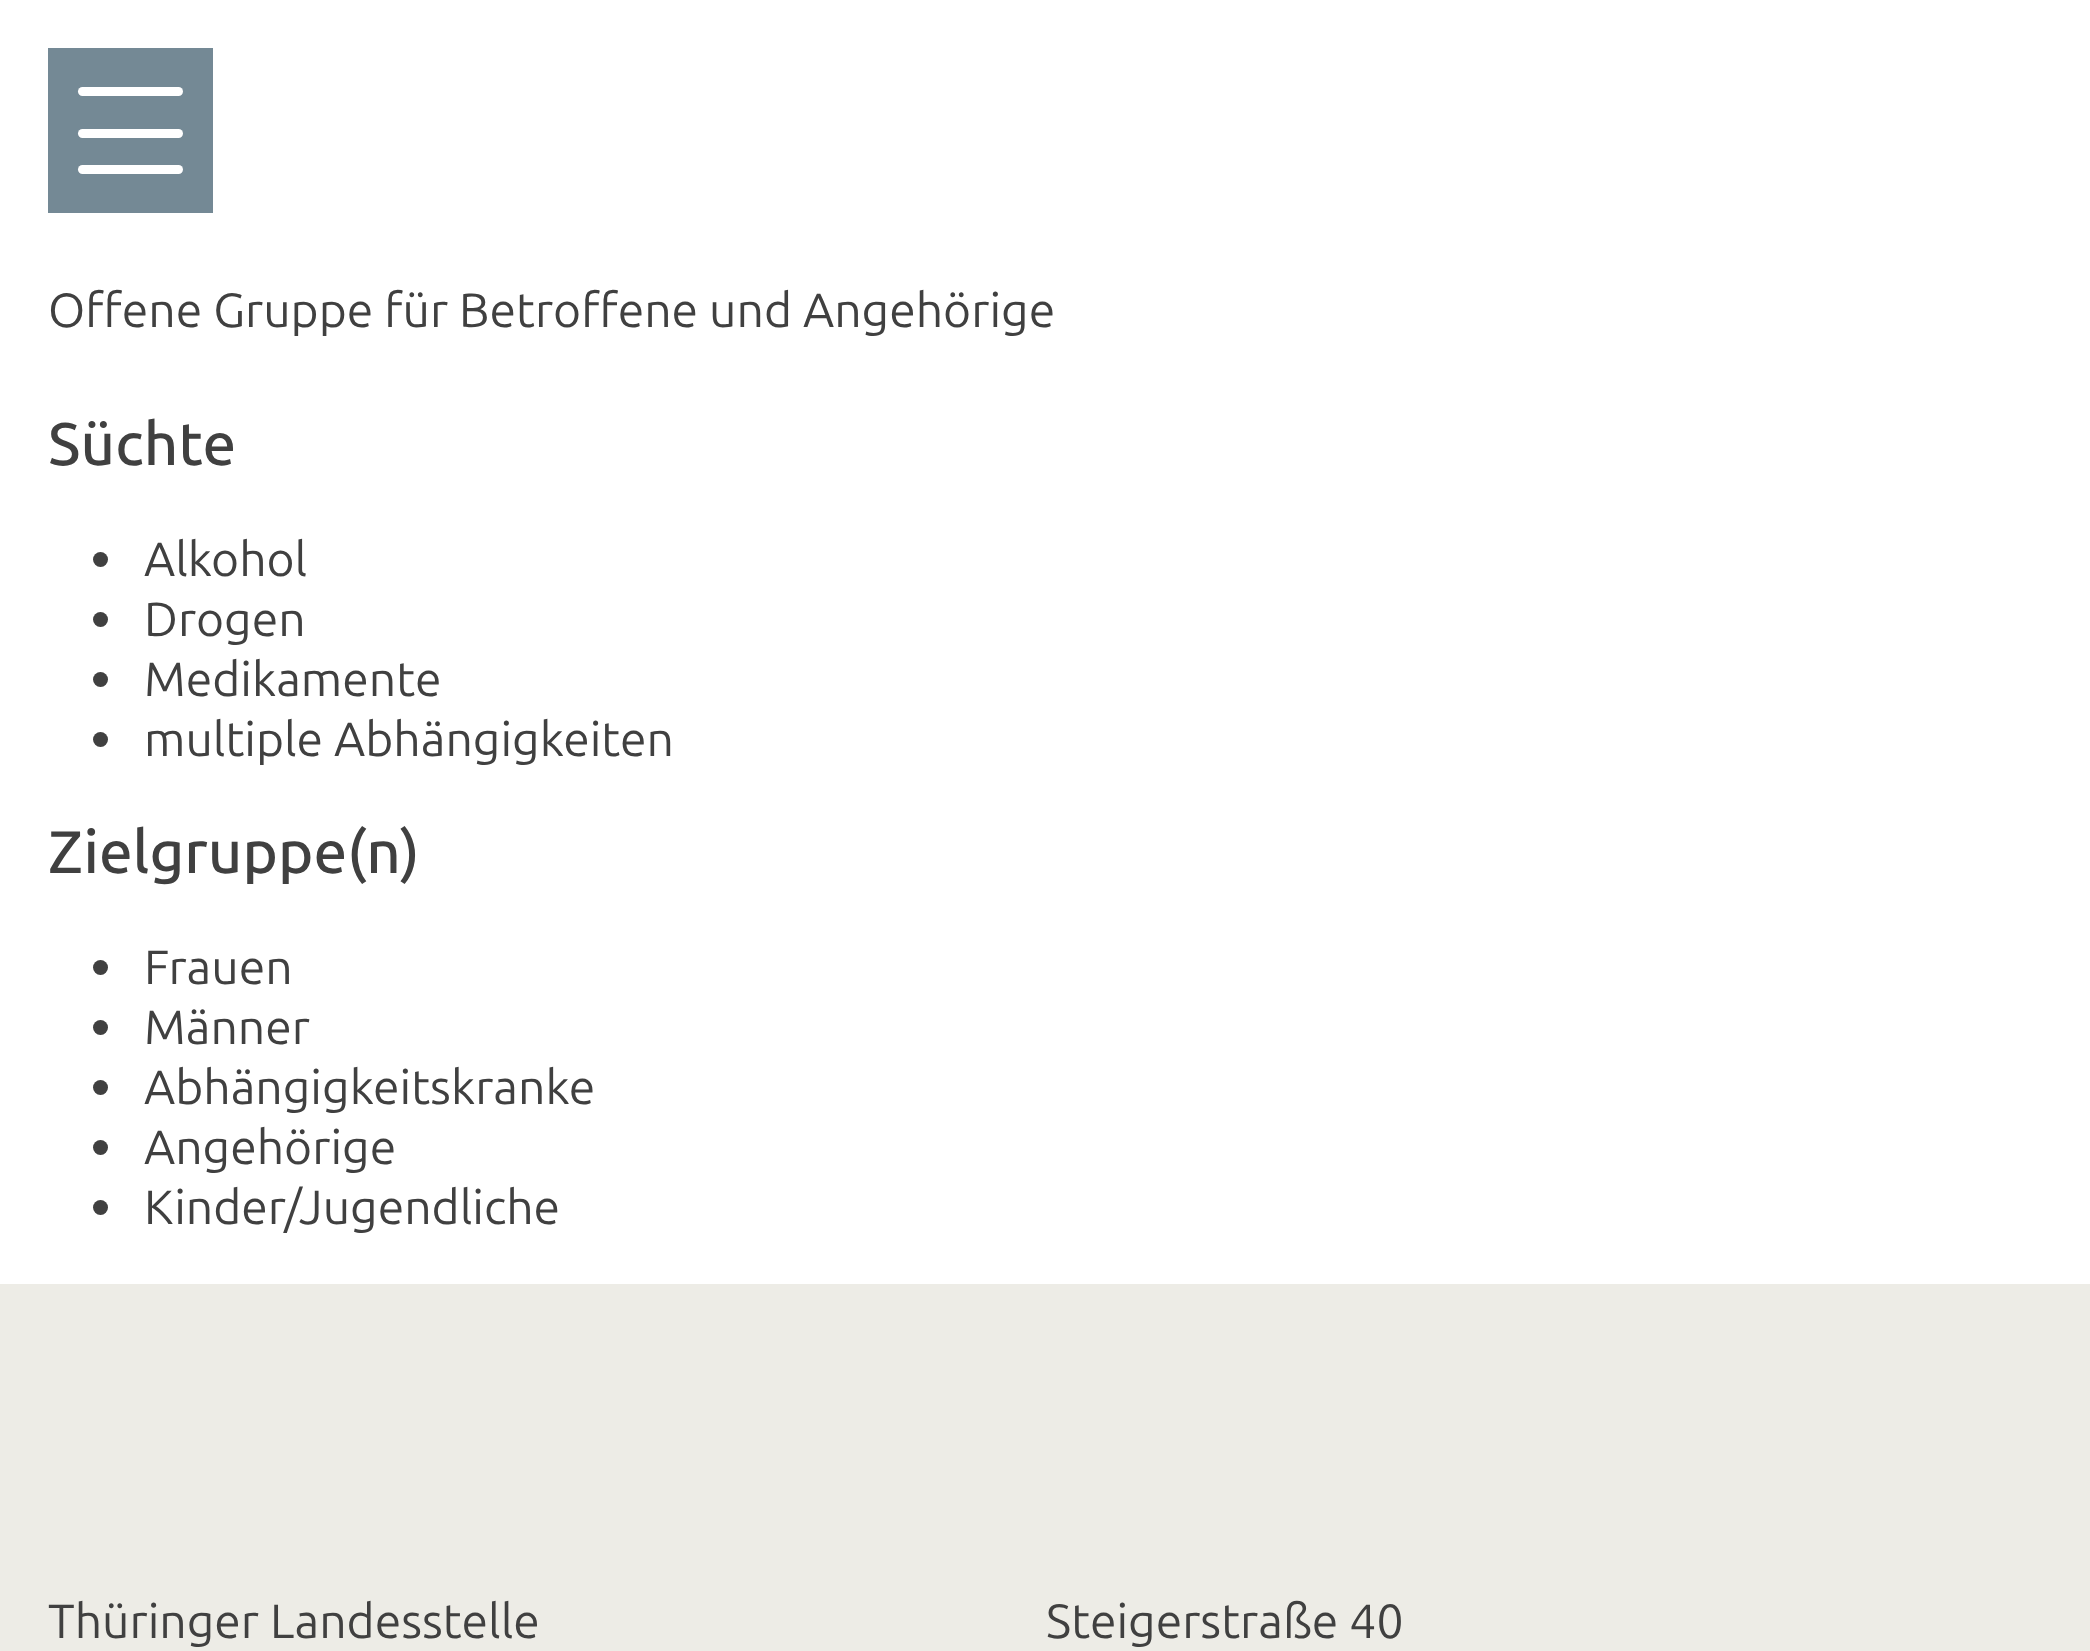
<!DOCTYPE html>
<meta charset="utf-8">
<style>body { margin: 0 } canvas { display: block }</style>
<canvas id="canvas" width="2090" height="1651"></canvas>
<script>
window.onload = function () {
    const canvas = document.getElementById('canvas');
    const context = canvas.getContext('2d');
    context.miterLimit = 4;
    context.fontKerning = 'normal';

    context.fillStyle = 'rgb(255, 255, 255)';
    context.fillRect(0, 0, 2090, 1651);
    context.fillStyle = 'rgb(116, 137, 149)';
    context.fillRect(48, 48, 165, 165);
    context.fillStyle = 'rgb(255, 255, 255)';
    context.beginPath();
    context.roundRect(78, 87, 105, 9, 4.5);
    context.fill();
    context.beginPath();
    context.roundRect(78, 129, 105, 9, 4.5);
    context.fill();
    context.beginPath();
    context.roundRect(78, 165, 105, 9, 4.5);
    context.fill();
    context.fillStyle = 'rgb(64, 64, 64)';
    context.beginPath();
    context.arc(100.5, 559.5, 7.5, 0, 2 * Math.PI);
    context.fill();
    context.beginPath();
    context.arc(100.5, 619.5, 7.5, 0, 2 * Math.PI);
    context.fill();
    context.beginPath();
    context.arc(100.5, 679.5, 7.5, 0, 2 * Math.PI);
    context.fill();
    context.beginPath();
    context.arc(100.5, 739.5, 7.5, 0, 2 * Math.PI);
    context.fill();
    context.beginPath();
    context.arc(100.5, 967.5, 7.5, 0, 2 * Math.PI);
    context.fill();
    context.beginPath();
    context.arc(100.5, 1027.5, 7.5, 0, 2 * Math.PI);
    context.fill();
    context.beginPath();
    context.arc(100.5, 1087.5, 7.5, 0, 2 * Math.PI);
    context.fill();
    context.beginPath();
    context.arc(100.5, 1147.5, 7.5, 0, 2 * Math.PI);
    context.fill();
    context.beginPath();
    context.arc(100.5, 1207.5, 7.5, 0, 2 * Math.PI);
    context.fill();
    context.fillStyle = 'rgb(237, 236, 230)';
    context.fillRect(0, 1284, 2090, 367);
    context.font = '48px Ubuntu';
    context.fillStyle = 'rgb(64, 64, 64)';
    context.fillText('Offene Gruppe für Betroffene und Angehörige', 48, 327);
    context.font = '500 60px Ubuntu';
    context.fillText('Süchte', 48, 465);
    context.font = '48px Ubuntu';
    context.fillText('Alkohol', 144, 576);
    context.fillText('Drogen', 144, 636);
    context.fillText('Medikamente', 144, 696);
    context.fillText('multiple Abhängigkeiten', 144, 756);
    context.font = '500 60px Ubuntu';
    context.fillText('Zielgruppe(n)', 48, 873);
    context.font = '48px Ubuntu';
    context.fillText('Frauen', 144, 984);
    context.fillText('Männer', 144, 1044);
    context.fillText('Abhängigkeitskranke', 144, 1104);
    context.fillText('Angehörige', 144, 1164);
    context.fillText('Kinder/Jugendliche', 144, 1224);
    context.fillText('Thüringer Landesstelle', 48, 1638);
    context.fillText('Steigerstraße 40', 1046, 1638);
};
</script>
